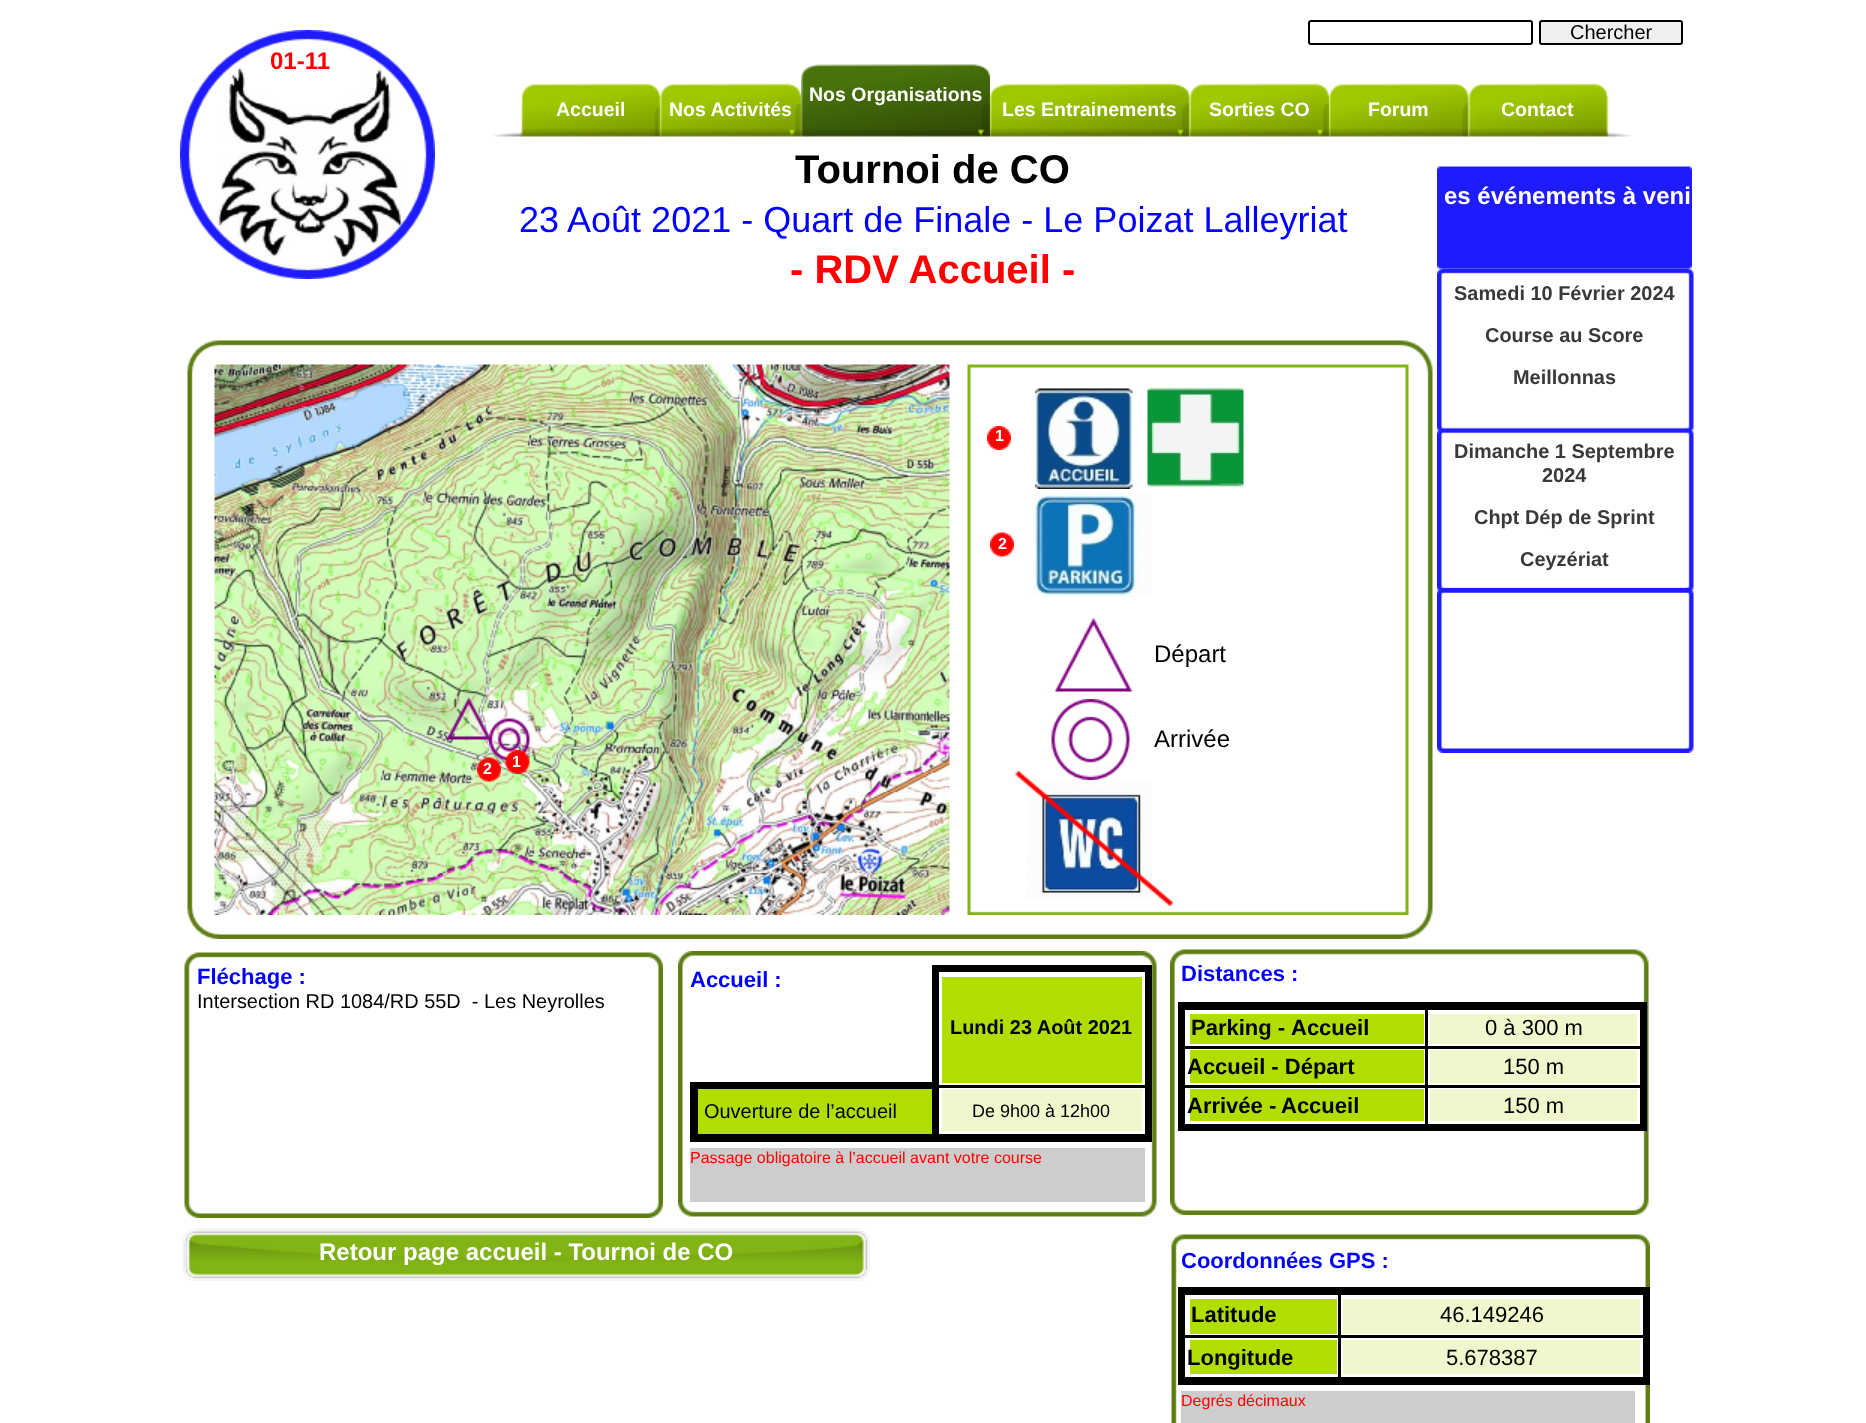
<!DOCTYPE html>
<meta charset="utf-8">
<style>body { margin: 0 } canvas { display: block }</style>
<canvas id="canvas" width="1866" height="1423"></canvas>
<img id="img1" src="images/2.png" hidden>
<img id="img2" src="images/1.png" hidden>
<img id="img3" src="images/3.png" hidden>
<img id="img4" src="images/4.png" hidden>
<img id="img5" src="images/5.png" hidden>
<img id="img6" src="images/6.png" hidden>
<img id="img7" src="images/7.png" hidden>
<img id="img8" src="images/8.png" hidden>
<img id="img9" src="images/9.png" hidden>
<img id="img10" src="images/10.png" hidden>
<img id="img11" src="images/11.png" hidden>
<img id="img12" src="images/12.png" hidden>
<img id="img13" src="images/13.png" hidden>
<img id="img14" src="images/14.png" hidden>
<img id="img15" src="images/15.png" hidden>
<img id="img16" src="images/16.png" hidden>
<img id="img17" src="images/17.png" hidden>
<img id="img18" src="images/18.png" hidden>
<img id="img19" src="images/19.png" hidden>
<img id="img20" src="images/20.png" hidden>
<img id="img21" src="images/23.png" hidden>
<img id="img22" src="images/21.png" hidden>
<img id="img23" src="images/22.png" hidden>
<img id="img24" src="images/24.png" hidden>
<img id="img25" src="images/25.png" hidden>
<img id="img26" src="images/26.png" hidden>
<img id="img27" src="images/27.png" hidden>
<img id="img28" src="images/28.png" hidden>
<img id="img29" src="images/29.png" hidden>
<img id="img30" src="images/30.png" hidden>
<img id="img31" src="images/31.png" hidden>
<img id="img32" src="images/32.png" hidden>
<img id="img33" src="images/33.png" hidden>
<script>
window.onload = function () {
    const canvas = document.getElementById('canvas');
    const context = canvas.getContext('2d');
    context.miterLimit = 4;
    context.fontKerning = 'normal';

    context.fillStyle = 'rgb(255, 255, 255)';
    context.fillRect(0, 0, 1866, 1423);
    context.drawImage(document.getElementById('img1'), 217, 67, 186, 190);
    context.drawImage(document.getElementById('img2'), 180, 30, 255, 249);
    context.beginPath();
    context.roundRect(1309, 21, 223, 23, 2);
    context.strokeStyle = 'rgb(0, 0, 0)';
    context.lineWidth = 2;
    context.stroke();
    context.fillStyle = 'rgb(239, 239, 239)';
    context.beginPath();
    context.roundRect(1540, 21, 142, 23, 2);
    context.fill();
    context.stroke();
    context.drawImage(document.getElementById('img3'), 801, 64, 189, 73);
    context.drawImage(document.getElementById('img4'), 493, 83, 167, 54);
    context.drawImage(document.getElementById('img5'), 660, 83, 141, 54);
    context.drawImage(document.getElementById('img6'), 990, 83, 200, 54);
    context.drawImage(document.getElementById('img7'), 1189, 83, 140, 54);
    context.drawImage(document.getElementById('img8'), 1329, 83, 140, 54);
    context.drawImage(document.getElementById('img9'), 1468, 83, 164, 54);
    context.drawImage(document.getElementById('img10'), 1437, 166, 255, 103);
    context.drawImage(document.getElementById('img11'), 1437, 268, 257, 325);
    context.drawImage(document.getElementById('img12'), 187, 340, 1246, 599);
    context.drawImage(document.getElementById('img13'), 214, 364, 736, 551);
    context.drawImage(document.getElementById('img14'), 967, 364, 442, 551);
    context.drawImage(document.getElementById('img15'), 987, 426, 24, 24);
    context.drawImage(document.getElementById('img16'), 1035, 388, 98, 101);
    context.drawImage(document.getElementById('img17'), 1147, 387, 97, 101);
    context.drawImage(document.getElementById('img18'), 990, 532, 24, 25);
    context.drawImage(document.getElementById('img19'), 1031, 493, 121, 104);
    context.drawImage(document.getElementById('img20'), 1054, 618, 79, 74);
    context.drawImage(document.getElementById('img21'), 1026, 779, 126, 120);
    context.drawImage(document.getElementById('img22'), 1051, 699, 79, 81);
    context.drawImage(document.getElementById('img23'), 1015, 771, 158, 135);
    context.drawImage(document.getElementById('img24'), 445, 697, 46, 43);
    context.drawImage(document.getElementById('img25'), 489, 718, 41, 43);
    context.drawImage(document.getElementById('img26'), 1437, 588, 257, 165);
    context.drawImage(document.getElementById('img27'), 505, 750, 25, 24);
    context.drawImage(document.getElementById('img28'), 477, 757, 24, 25);
    context.drawImage(document.getElementById('img29'), 184, 952, 479, 266);
    context.drawImage(document.getElementById('img30'), 678, 951, 479, 266);
    context.drawImage(document.getElementById('img31'), 1170, 949, 479, 266);
    context.fillStyle = 'rgb(176, 222, 0)';
    context.fillRect(942, 977, 200, 106);
    context.fillStyle = 'rgb(0, 0, 0)';
    context.fillRect(932, 965, 220, 7);
    context.fillRect(933, 1085, 218, 3);
    context.fillRect(1145, 1082, 7, 60);
    context.fillRect(1145, 965, 7, 124);
    context.fillRect(932, 1134, 220, 8);
    context.fillRect(932, 1082, 7, 60);
    context.fillRect(690, 1082, 249, 7);
    context.fillRect(932, 965, 7, 124);
    context.fillStyle = 'rgb(176, 222, 0)';
    context.fillRect(698, 1089, 234, 45);
    context.fillStyle = 'rgb(0, 0, 0)';
    context.fillRect(690, 1134, 249, 8);
    context.fillRect(690, 1082, 8, 60);
    context.fillStyle = 'rgb(239, 248, 204)';
    context.fillRect(942, 1089, 200, 42);
    context.fillStyle = 'rgb(176, 222, 0)';
    context.fillRect(1190, 1014, 234, 30);
    context.fillStyle = 'rgb(0, 0, 0)';
    context.fillRect(1425, 1046, 221, 3);
    context.fillRect(1425, 1085, 221, 3);
    context.fillRect(1425, 1085, 3, 45);
    context.fillRect(1181, 1085, 247, 3);
    context.fillRect(1425, 1046, 3, 42);
    context.fillRect(1181, 1046, 247, 3);
    context.fillRect(1425, 1005, 3, 44);
    context.fillRect(1178, 1002, 469, 8);
    context.fillRect(1640, 1043, 7, 88);
    context.fillRect(1178, 1124, 469, 7);
    context.fillRect(1178, 1043, 7, 88);
    context.fillRect(1178, 1002, 7, 48);
    context.fillStyle = 'rgb(239, 248, 204)';
    context.fillRect(1430, 1014, 207, 30);
    context.fillStyle = 'rgb(0, 0, 0)';
    context.fillRect(1640, 1002, 7, 48);
    context.fillStyle = 'rgb(176, 222, 0)';
    context.fillRect(1190, 1050, 234, 33);
    context.fillStyle = 'rgb(239, 248, 204)';
    context.fillRect(1430, 1050, 207, 33);
    context.fillStyle = 'rgb(176, 222, 0)';
    context.fillRect(1190, 1089, 234, 32);
    context.fillStyle = 'rgb(239, 248, 204)';
    context.fillRect(1430, 1089, 207, 32);
    context.fillStyle = 'rgb(205, 205, 205)';
    context.fillRect(690, 1148, 455, 54);
    context.drawImage(document.getElementById('img32'), 182, 1228, 688, 53);
    context.drawImage(document.getElementById('img33'), 1171, 1234, 479, 189);
    context.fillStyle = 'rgb(176, 222, 0)';
    context.fillRect(1190, 1299, 147, 35);
    context.fillStyle = 'rgb(0, 0, 0)';
    context.fillRect(1338, 1335, 311, 3);
    context.fillRect(1338, 1335, 3, 48);
    context.fillRect(1181, 1335, 160, 3);
    context.fillRect(1338, 1290, 3, 48);
    context.fillRect(1178, 1287, 472, 8);
    context.fillRect(1643, 1332, 7, 53);
    context.fillRect(1178, 1377, 472, 8);
    context.fillRect(1178, 1332, 7, 53);
    context.fillRect(1178, 1287, 7, 53);
    context.fillStyle = 'rgb(239, 248, 204)';
    context.fillRect(1343, 1299, 297, 35);
    context.fillStyle = 'rgb(0, 0, 0)';
    context.fillRect(1643, 1287, 7, 53);
    context.fillStyle = 'rgb(176, 222, 0)';
    context.fillRect(1190, 1340, 147, 34);
    context.fillStyle = 'rgb(239, 248, 204)';
    context.fillRect(1343, 1340, 297, 34);
    context.fillStyle = 'rgb(205, 205, 205)';
    context.fillRect(1181, 1391, 454, 32);
    context.font = '20px Liberation Sans';
    context.fillStyle = 'rgb(0, 0, 0)';
    context.fillText('Chercher', 1570, 39);
    context.font = 'bold 24px Liberation Sans';
    context.fillStyle = 'rgb(255, 0, 0)';
    context.fillText('01-11', 270, 69);
    context.font = 'bold 19.5px Liberation Sans';
    context.fillStyle = 'rgb(255, 255, 255)';
    context.fillText('Nos Organisations', 809, 101);
    context.fillText('Accueil', 556, 116);
    context.fillText('Nos Activités', 669, 116);
    context.fillText('Les Entrainements', 1002, 116);
    context.fillText('Sorties CO', 1209, 116);
    context.fillText('Forum', 1368, 116);
    context.fillText('Contact', 1501, 116);
    context.font = 'bold 40px Liberation Sans';
    context.fillStyle = 'rgb(0, 0, 0)';
    context.fillText('Tournoi de CO', 795, 183);
    context.font = '36px Liberation Sans';
    context.fillStyle = 'rgb(0, 0, 255)';
    context.fillText('23 Août 2021 - Quart de Finale - Le Poizat Lalleyriat', 519, 232);
    context.font = 'bold 40px Liberation Sans';
    context.fillStyle = 'rgb(255, 0, 0)';
    context.fillText('- RDV Accueil -', 790, 283);
    context.font = 'bold 24px Liberation Sans';
    context.fillStyle = 'rgb(255, 255, 255)';
    context.fillText('es événements à veni', 1444, 204);
    context.font = 'bold 19.95px Liberation Sans';
    context.fillStyle = 'rgb(57, 57, 57)';
    context.fillText('Samedi 10 Février 2024', 1454, 300);
    context.fillText('Course au Score', 1485, 342);
    context.fillText('Meillonnas', 1513, 384);
    context.font = 'bold 16.05px Liberation Sans';
    context.fillStyle = 'rgb(255, 255, 255)';
    context.fillText('1', 995, 441);
    context.fillText('2', 998, 549);
    context.font = '24px Liberation Sans';
    context.fillStyle = 'rgb(0, 0, 0)';
    context.fillText('Départ', 1154, 662);
    context.fillText('Arrivée', 1154, 747);
    context.font = 'bold 19.95px Liberation Sans';
    context.fillStyle = 'rgb(57, 57, 57)';
    context.fillText('Dimanche 1 Septembre', 1454, 458);
    context.fillText('2024', 1542, 482);
    context.fillText('Chpt Dép de Sprint', 1474, 524);
    context.fillText('Ceyzériat', 1520, 566);
    context.font = 'bold 16.05px Liberation Sans';
    context.fillStyle = 'rgb(255, 255, 255)';
    context.fillText('1', 512, 767);
    context.fillText('2', 483, 774);
    context.font = 'bold 22px Liberation Sans';
    context.fillStyle = 'rgb(0, 0, 255)';
    context.fillText('Fléchage :', 197, 984);
    context.font = '19.95px Liberation Sans';
    context.fillStyle = 'rgb(0, 0, 0)';
    context.fillText('Intersection RD 1084/RD 55D  - Les Neyrolles', 197, 1008);
    context.font = 'bold 22px Liberation Sans';
    context.fillStyle = 'rgb(0, 0, 255)';
    context.fillText('Accueil :', 690, 987);
    context.fillText('Distances :', 1181, 981);
    context.font = 'bold 19.95px Liberation Sans';
    context.fillStyle = 'rgb(0, 0, 0)';
    context.fillText('Lundi 23 Août 2021', 950, 1034);
    context.font = '19.95px Liberation Sans';
    context.fillText('Ouverture de l’accueil', 704, 1118);
    context.font = '18px Liberation Sans';
    context.fillText('De 9h00 à 12h00', 972, 1117);
    context.font = 'bold 22px Liberation Sans';
    context.fillText('Parking -', 1191, 1035);
    context.fillText('Accueil', 1291, 1035);
    context.font = '22px Liberation Sans';
    context.fillText('0 à 300 m', 1485, 1035);
    context.font = 'bold 22px Liberation Sans';
    context.fillText('Accueil - Départ', 1187, 1074);
    context.font = '22px Liberation Sans';
    context.fillText('150 m', 1503, 1074);
    context.font = 'bold 22px Liberation Sans';
    context.fillText('Arrivée -', 1187, 1113);
    context.fillText('Accueil', 1281, 1113);
    context.font = '22px Liberation Sans';
    context.fillText('150 m', 1503, 1113);
    context.font = '16.05px Liberation Sans';
    context.fillStyle = 'rgb(255, 0, 0)';
    context.fillText('Passage obligatoire à l’accueil avant votre course', 690, 1163);
    context.font = 'bold 24px Liberation Sans';
    context.fillStyle = 'rgb(255, 255, 255)';
    context.fillText('Retour page accueil - Tournoi de CO', 319, 1260);
    context.font = 'bold 22px Liberation Sans';
    context.fillStyle = 'rgb(0, 0, 255)';
    context.fillText('Coordonnées GPS :', 1181, 1268);
    context.fillStyle = 'rgb(0, 0, 0)';
    context.fillText('Latitude', 1191, 1322);
    context.font = '22px Liberation Sans';
    context.fillText('46.149246', 1440, 1322);
    context.font = 'bold 22px Liberation Sans';
    context.fillText('Longitude', 1187, 1365);
    context.font = '22px Liberation Sans';
    context.fillText('5.678387', 1446, 1365);
    context.font = '16.05px Liberation Sans';
    context.fillStyle = 'rgb(255, 0, 0)';
    context.fillText('Degrés décimaux', 1181, 1406);
};
</script>
